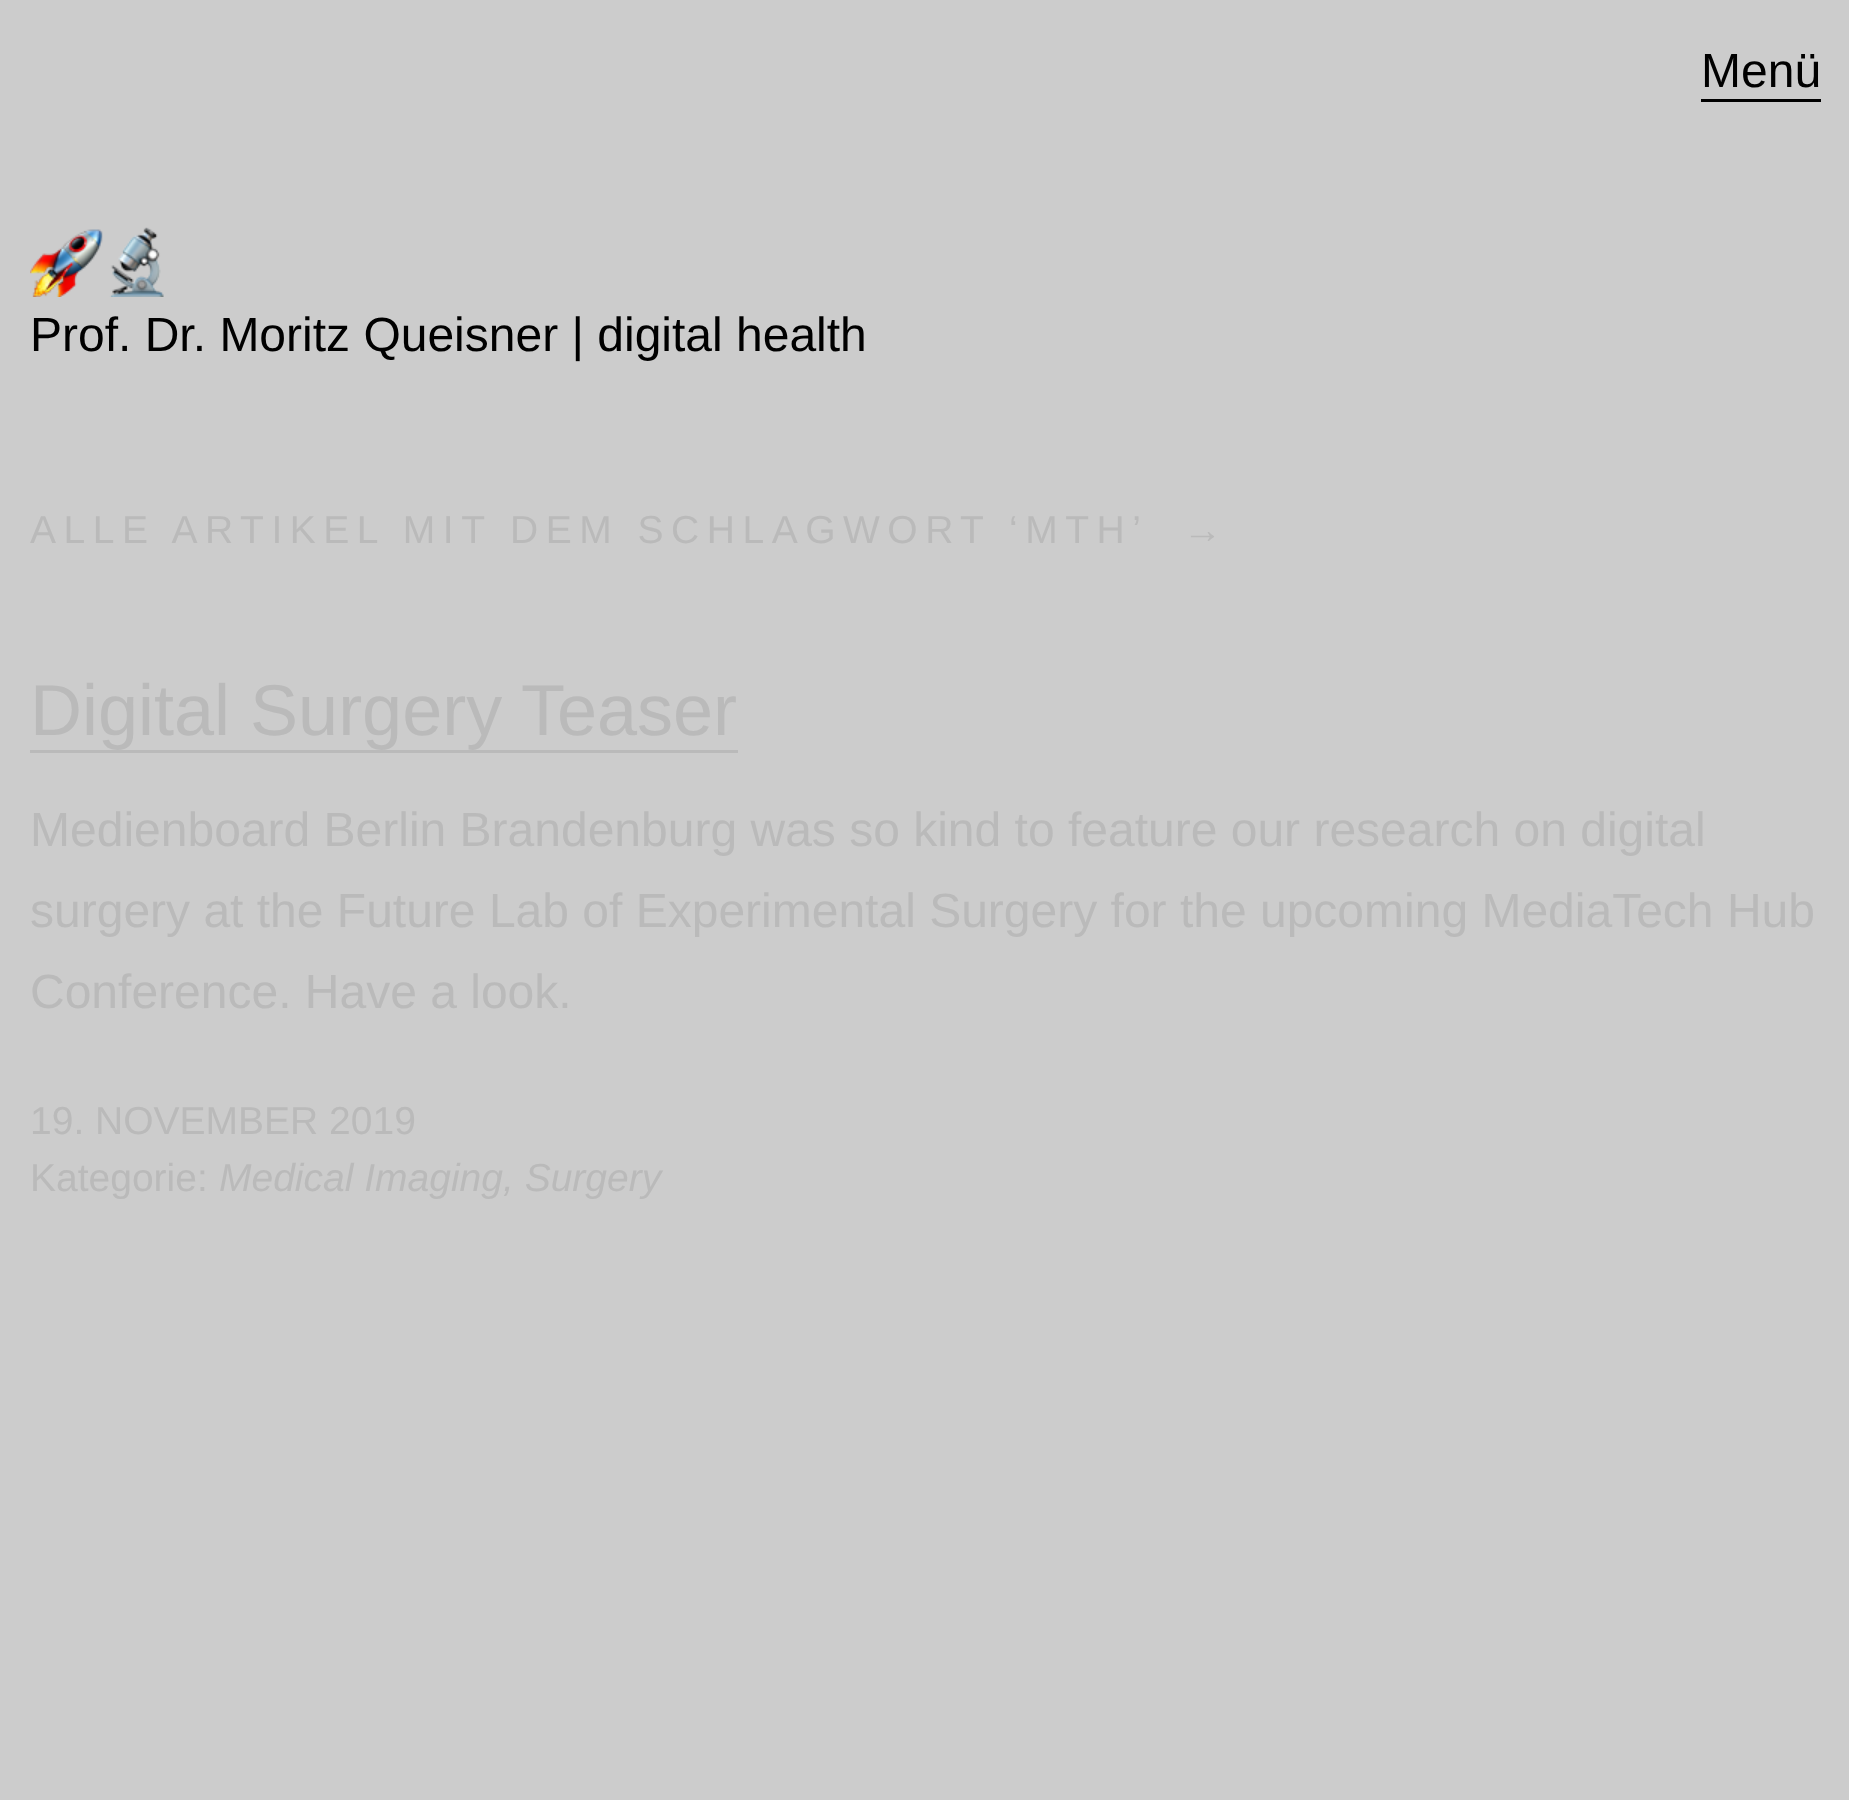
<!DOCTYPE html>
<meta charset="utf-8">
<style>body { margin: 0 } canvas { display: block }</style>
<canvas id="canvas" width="1849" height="1800"></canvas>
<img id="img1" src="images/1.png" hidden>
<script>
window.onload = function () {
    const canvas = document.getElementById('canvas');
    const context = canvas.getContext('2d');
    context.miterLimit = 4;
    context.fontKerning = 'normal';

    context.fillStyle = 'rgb(204, 204, 204)';
    context.fillRect(0, 0, 1849, 1800);
    context.fillStyle = 'rgb(0, 0, 0)';
    context.fillRect(1701, 99, 120, 3);
    context.drawImage(document.getElementById('img1'), 30, 227, 134, 70);
    context.fillStyle = 'rgb(186, 186, 186)';
    context.fillRect(30, 750, 708, 3);
    context.font = '48px Liberation Sans';
    context.fillStyle = 'rgb(0, 0, 0)';
    context.fillText('Menü', 1701, 87);
    context.fillText('Prof. Dr. Moritz Queisner | digital health', 30, 351);
    context.letterSpacing = '7.5px';
    context.font = '39px Liberation Sans';
    context.fillStyle = 'rgb(186, 186, 186)';
    context.fillText('ALLE ARTIKEL MIT DEM SCHLAGWORT ‘MTH’', 30, 543);
    context.fillText('→', 1183, 543);
    context.letterSpacing = '0px';
    context.font = '72px Liberation Sans';
    context.fillText('Digital Surgery Teaser', 30, 735);
    context.font = '48px Liberation Sans';
    context.fillText('Medienboard Berlin Brandenburg was so kind to feature our research on digital', 30, 846);
    context.fillText('surgery at the Future Lab of Experimental Surgery for the upcoming MediaTech Hub', 30, 927);
    context.fillText('Conference. Have a look.', 30, 1008);
    context.font = '39px Liberation Sans';
    context.fillText('19. NOVEMBER 2019', 30, 1134);
    context.fillText('Kategorie:', 30, 1191);
    context.font = 'italic 39px Liberation Sans';
    context.fillText('Medical Imaging, Surgery', 219, 1191);
};
</script>
